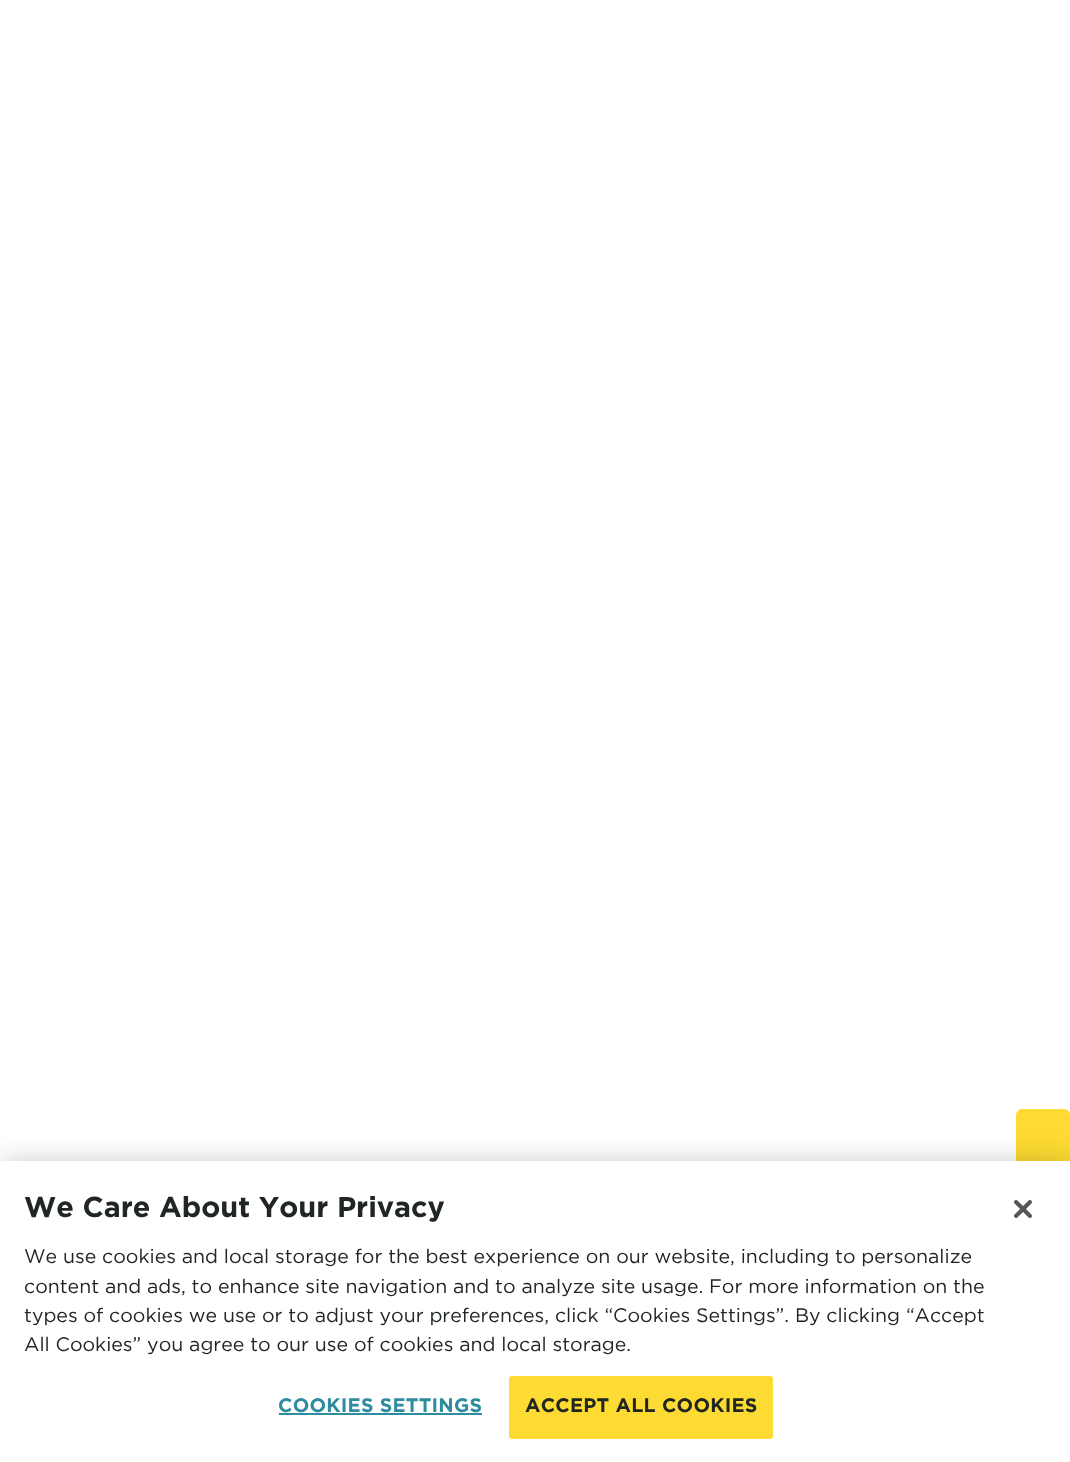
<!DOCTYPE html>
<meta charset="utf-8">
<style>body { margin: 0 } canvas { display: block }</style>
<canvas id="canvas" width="1070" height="1462"></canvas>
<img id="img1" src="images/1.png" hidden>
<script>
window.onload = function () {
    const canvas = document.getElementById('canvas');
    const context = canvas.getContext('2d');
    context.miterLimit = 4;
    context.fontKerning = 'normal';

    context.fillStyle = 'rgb(255, 255, 255)';
    context.fillRect(0, 0, 1070, 1462);
    context.fillStyle = 'rgb(253, 219, 50)';
    context.beginPath();
    context.moveTo(1016, 1279);
    context.lineTo(1016, 1115);
    context.bezierCurveTo(1016, 1112, 1019, 1109, 1022, 1109);
    context.lineTo(1064, 1109);
    context.bezierCurveTo(1067, 1109, 1070, 1112, 1070, 1115);
    context.lineTo(1070, 1279);
    context.bezierCurveTo(1070, 1282, 1067, 1285, 1064, 1285);
    context.lineTo(1022, 1285);
    context.bezierCurveTo(1019, 1285, 1016, 1282, 1016, 1279);
    context.closePath();
    context.fill();
    context.fillStyle = 'rgba(0, 0, 0, 0.2)';
    context.filter = 'blur(13.5px)';
    context.beginPath();
    context.rect(0, 1161, 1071, 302);
    context.fill();
    context.filter = 'none';
    context.fillStyle = 'rgb(255, 255, 255)';
    context.fillRect(0, 1161, 1070, 301);
    context.fillStyle = 'rgb(45, 140, 158)';
    context.fillRect(279, 1413, 203, 2);
    context.fillStyle = 'rgb(253, 219, 50)';
    context.beginPath();
    context.roundRect(510, 1377, 262, 61, 2);
    context.fill();
    context.strokeStyle = 'rgb(253, 219, 50)';
    context.lineWidth = 2;
    context.stroke();
    context.drawImage(document.getElementById('img1'), 1014, 1200, 18, 18);
    context.font = 'bold 28.75px Gotham';
    context.fillStyle = 'rgb(32, 38, 33)';
    context.fillText('We Care About Your Privacy', 24, 1217);
    context.font = '19.5px Gotham';
    context.fillText('We use cookies and local storage for the best experience on our website, including to personalize', 24, 1263);
    context.fillText('content and ads, to enhance site navigation and to analyze site usage.', 24, 1293);
    context.fillText('For more information on the', 709, 1293);
    context.fillText('types of cookies we use or to adjust your preferences, click “Cookies Settings”. By clicking “Accept', 24, 1322);
    context.fillText('All Cookies” you agree to our use of cookies and local storage.', 24, 1351);
    context.letterSpacing = '0.25px';
    context.font = 'bold 19.5px Gotham';
    context.fillStyle = 'rgb(45, 140, 158)';
    context.fillText('COOKIES SETTINGS', 278, 1412);
    context.fillStyle = 'rgb(32, 38, 33)';
    context.fillText('ACCEPT ALL COOKIES', 525, 1412);
};
</script>
